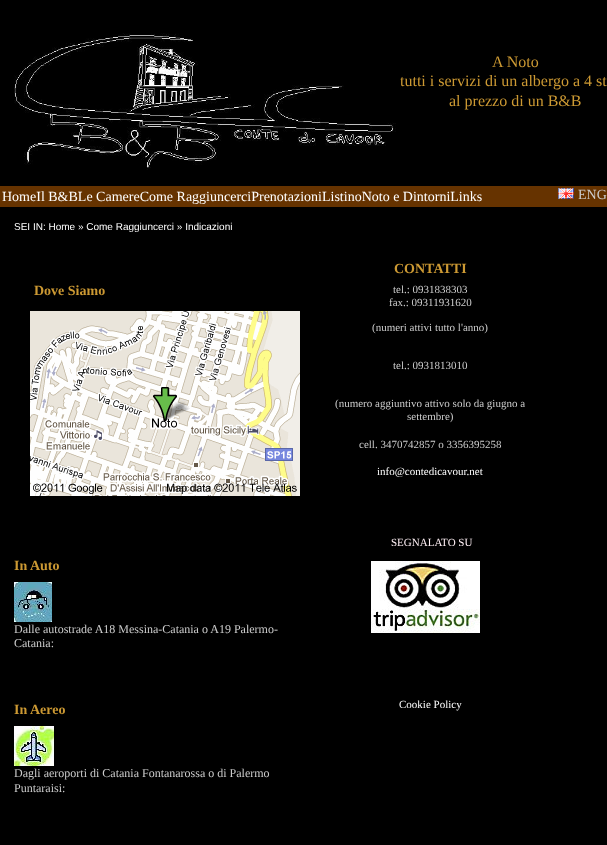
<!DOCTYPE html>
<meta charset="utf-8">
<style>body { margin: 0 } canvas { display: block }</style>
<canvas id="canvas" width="607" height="845"></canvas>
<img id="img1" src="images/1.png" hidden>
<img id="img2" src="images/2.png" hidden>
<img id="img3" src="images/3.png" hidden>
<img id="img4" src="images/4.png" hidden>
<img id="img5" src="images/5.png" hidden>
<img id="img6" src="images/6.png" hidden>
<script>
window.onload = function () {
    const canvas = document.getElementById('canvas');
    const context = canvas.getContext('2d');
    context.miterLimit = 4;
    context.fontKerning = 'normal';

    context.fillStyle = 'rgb(0, 0, 0)';
    context.fillRect(0, 0, 607, 845);
    context.drawImage(document.getElementById('img1'), 0, 0, 396, 170);
    context.fillStyle = 'rgb(102, 51, 0)';
    context.fillRect(0, 186, 607, 21);
    context.drawImage(document.getElementById('img2'), 558, 188, 16, 11);
    context.drawImage(document.getElementById('img3'), 30, 311, 270, 185);
    context.drawImage(document.getElementById('img4'), 14, 582, 38, 40);
    context.drawImage(document.getElementById('img5'), 14, 726, 40, 40);
    context.drawImage(document.getElementById('img6'), 371, 561, 109, 72);
    context.font = '16px Liberation Serif';
    context.fillStyle = 'rgb(204, 153, 51)';
    context.fillText('A Noto', 492, 67);
    context.fillText('tutti i servizi di un albergo a 4 st', 400, 86);
    context.fillText('al prezzo di un B&B', 449, 106);
    context.font = '14px Liberation Serif';
    context.fillStyle = 'rgb(255, 255, 255)';
    context.fillText('HomeIl B&BLe CamereCome RaggiuncerciPrenotazioniListinoNoto e DintorniLinks', 2, 201);
    context.fillStyle = 'rgb(204, 204, 204)';
    context.fillText('ENG', 578, 199);
    context.font = '10px Liberation Sans';
    context.fillStyle = 'rgb(255, 255, 255)';
    context.fillText('SEI IN: Home » Come Raggiuncerci » Indicazioni', 14, 230);
    context.font = 'bold 14px Liberation Serif';
    context.fillStyle = 'rgb(204, 153, 51)';
    context.fillText('Dove Siamo', 34, 295);
    context.fillText('In Auto', 14, 570);
    context.font = '12px Liberation Serif';
    context.fillStyle = 'rgb(204, 204, 204)';
    context.fillText('Dalle autostrade A18 Messina-Catania o A19 Palermo-', 14, 633);
    context.fillText('Catania:', 14, 647);
    context.font = 'bold 14px Liberation Serif';
    context.fillStyle = 'rgb(204, 153, 51)';
    context.fillText('In Aereo', 14, 714);
    context.font = '12px Liberation Serif';
    context.fillStyle = 'rgb(204, 204, 204)';
    context.fillText('Dagli aeroporti di Catania Fontanarossa o di Palermo', 14, 777);
    context.fillText('Puntaraisi:', 14, 792);
    context.font = 'bold 14px Liberation Serif';
    context.fillStyle = 'rgb(204, 153, 51)';
    context.fillText('CONTATTI', 394, 273);
    context.font = '11px Liberation Serif';
    context.fillStyle = 'rgb(204, 204, 204)';
    context.fillText('tel.: 0931838303', 393, 293);
    context.fillText('fax.: 09311931620', 389, 306);
    context.fillText('(numeri attivi tutto l\'anno)', 372, 331);
    context.fillText('tel.: 0931813010', 393, 369);
    context.fillText('(numero aggiuntivo attivo solo da giugno a', 335, 407);
    context.fillText('settembre)', 407, 420);
    context.fillText('cell. 3470742857 o 3356395258', 359, 448);
    context.fillStyle = 'rgb(255, 255, 255)';
    context.fillText('info@contedicavour.net', 377, 475);
    context.fillStyle = 'rgb(255, 240, 245)';
    context.fillText('SEGNALATO SU', 391, 546);
    context.fillStyle = 'rgb(255, 255, 255)';
    context.fillText('Cookie Policy', 399, 708);
};
</script>
